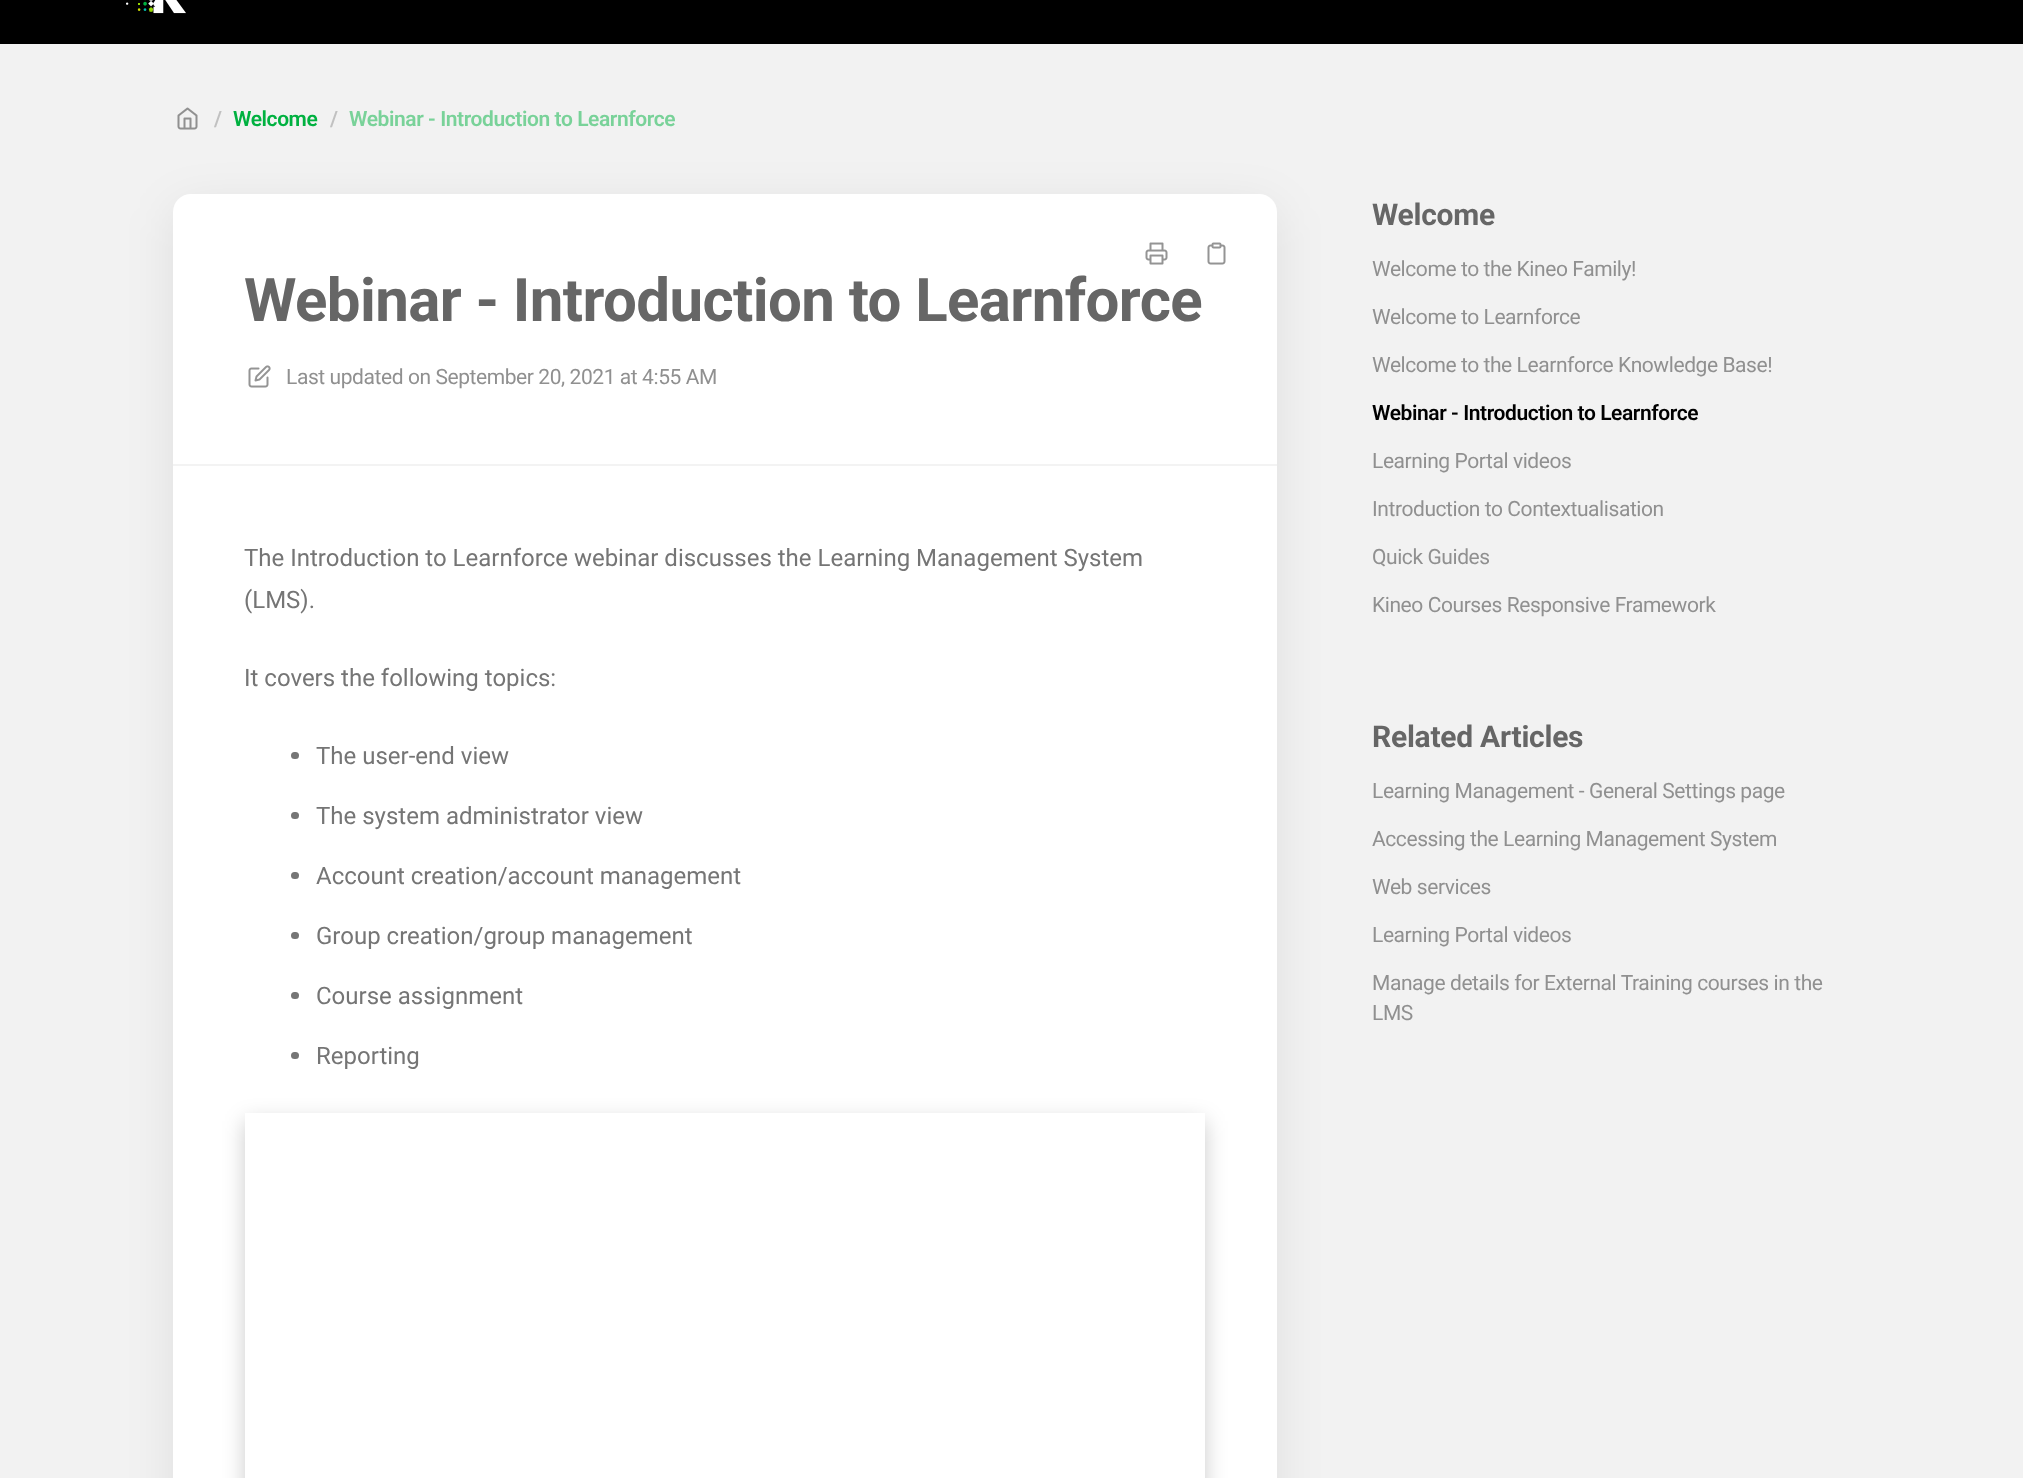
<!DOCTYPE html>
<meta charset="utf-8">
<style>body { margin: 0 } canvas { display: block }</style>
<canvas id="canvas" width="2023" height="1478"></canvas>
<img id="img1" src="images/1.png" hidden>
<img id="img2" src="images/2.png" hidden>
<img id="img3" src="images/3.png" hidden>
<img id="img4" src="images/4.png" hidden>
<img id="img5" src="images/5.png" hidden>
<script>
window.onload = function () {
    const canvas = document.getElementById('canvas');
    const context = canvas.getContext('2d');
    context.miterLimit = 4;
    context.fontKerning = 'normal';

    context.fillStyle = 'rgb(242, 242, 242)';
    context.fillRect(0, 0, 2023, 1478);
    context.fillStyle = 'rgb(0, 0, 0)';
    context.fillRect(0, 0, 2023, 44);
    context.drawImage(document.getElementById('img1'), 126, 0, 60, 14);
    context.drawImage(document.getElementById('img2'), 177, 107, 21, 23);
    context.fillStyle = 'rgba(0, 0, 0, 0.08)';
    context.filter = 'blur(24px)';
    context.beginPath();
    context.roundRect(173, 206, 1104, 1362, 18);
    context.fill();
    context.filter = 'none';
    context.fillStyle = 'rgb(255, 255, 255)';
    context.beginPath();
    context.roundRect(173, 194, 1104, 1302, 18);
    context.fill();
    context.drawImage(document.getElementById('img3'), 1145, 242, 23, 23);
    context.drawImage(document.getElementById('img4'), 1207, 242, 19, 23);
    context.drawImage(document.getElementById('img5'), 248, 365, 23, 23);
    context.fillStyle = 'rgb(243, 243, 243)';
    context.fillRect(173, 464, 1104, 2);
    context.fillStyle = 'rgb(117, 117, 117)';
    context.beginPath();
    context.roundRect(291, 752, 8, 7, 3.5);
    context.fill();
    context.beginPath();
    context.roundRect(291, 812, 8, 7, 3.5);
    context.fill();
    context.beginPath();
    context.roundRect(291, 872, 8, 7, 3.5);
    context.fill();
    context.beginPath();
    context.roundRect(291, 932, 8, 7, 3.5);
    context.fill();
    context.beginPath();
    context.roundRect(291, 992, 8, 7, 3.5);
    context.fill();
    context.beginPath();
    context.roundRect(291, 1052, 8, 7, 3.5);
    context.fill();
    context.save();
    context.beginPath();
    context.moveTo(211, 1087);
    context.lineTo(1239, 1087);
    context.lineTo(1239, 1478);
    context.lineTo(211, 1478);
    context.closePath();
    context.moveTo(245, 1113);
    context.lineTo(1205, 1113);
    context.lineTo(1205, 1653);
    context.lineTo(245, 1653);
    context.closePath();
    context.clip('evenodd');
    context.fillStyle = 'rgba(0, 0, 0, 0.2)';
    context.filter = 'blur(11px)';
    context.beginPath();
    context.rect(245, 1121, 960, 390);
    context.fill();
    context.filter = 'none';
    context.restore();
    context.letterSpacing = '-0.42px';
    context.font = '600 21px Roboto';
    context.fillStyle = 'rgb(193, 193, 193)';
    context.fillText('/', 214, 126);
    context.fillStyle = 'rgb(0, 177, 64)';
    context.fillText('Welcome', 233, 126);
    context.fillStyle = 'rgb(193, 193, 193)';
    context.fillText('/', 330, 126);
    context.fillStyle = 'rgb(121, 210, 153)';
    context.fillText('Webinar - Introduction to Learnforce', 349, 126);
    context.letterSpacing = '-0.6px';
    context.font = 'bold 60px Roboto';
    context.fillStyle = 'rgb(102, 102, 102)';
    context.fillText('Webinar - Introduction to Learnforce', 244, 321);
    context.letterSpacing = '-0.42px';
    context.font = '21px Roboto';
    context.fillStyle = 'rgb(144, 144, 144)';
    context.fillText('Last updated on September 20, 2021 at 4:55 AM', 286, 384);
    context.letterSpacing = '0px';
    context.font = '24px Roboto';
    context.fillStyle = 'rgb(117, 117, 117)';
    context.fillText('The Introduction to Learnforce webinar discusses the Learning Management System', 244, 566);
    context.fillText('(LMS).', 244, 608);
    context.fillText('It covers the following topics:', 244, 686);
    context.fillText('The user-end view', 316, 764);
    context.fillText('The system administrator view', 316, 824);
    context.fillText('Account creation/account management', 316, 884);
    context.fillText('Group creation/group management', 316, 944);
    context.fillText('Course assignment', 316, 1004);
    context.fillText('Reporting', 316, 1064);
    context.letterSpacing = '-0.25px';
    context.font = 'bold 30px Roboto';
    context.fillStyle = 'rgb(102, 102, 102)';
    context.fillText('Welcome', 1372, 225);
    context.letterSpacing = '-0.42px';
    context.font = '21px Roboto';
    context.fillStyle = 'rgb(144, 144, 144)';
    context.fillText('Welcome to the Kineo Family!', 1372, 276);
    context.fillText('Welcome to Learnforce', 1372, 324);
    context.fillText('Welcome to the Learnforce Knowledge Base!', 1372, 372);
    context.font = '600 21px Roboto';
    context.fillStyle = 'rgb(0, 0, 0)';
    context.fillText('Webinar - Introduction to Learnforce', 1372, 420);
    context.font = '21px Roboto';
    context.fillStyle = 'rgb(144, 144, 144)';
    context.fillText('Learning Portal videos', 1372, 468);
    context.fillText('Introduction to Contextualisation', 1372, 516);
    context.fillText('Quick Guides', 1372, 564);
    context.fillText('Kineo Courses Responsive Framework', 1372, 612);
    context.letterSpacing = '-0.25px';
    context.font = 'bold 30px Roboto';
    context.fillStyle = 'rgb(102, 102, 102)';
    context.fillText('Related Articles', 1372, 747);
    context.letterSpacing = '-0.42px';
    context.font = '21px Roboto';
    context.fillStyle = 'rgb(144, 144, 144)';
    context.fillText('Learning Management - General Settings page', 1372, 798);
    context.fillText('Accessing the Learning Management System', 1372, 846);
    context.fillText('Web services', 1372, 894);
    context.fillText('Learning Portal videos', 1372, 942);
    context.fillText('Manage details for External Training courses in the', 1372, 990);
    context.fillText('LMS', 1372, 1020);
};
</script>
